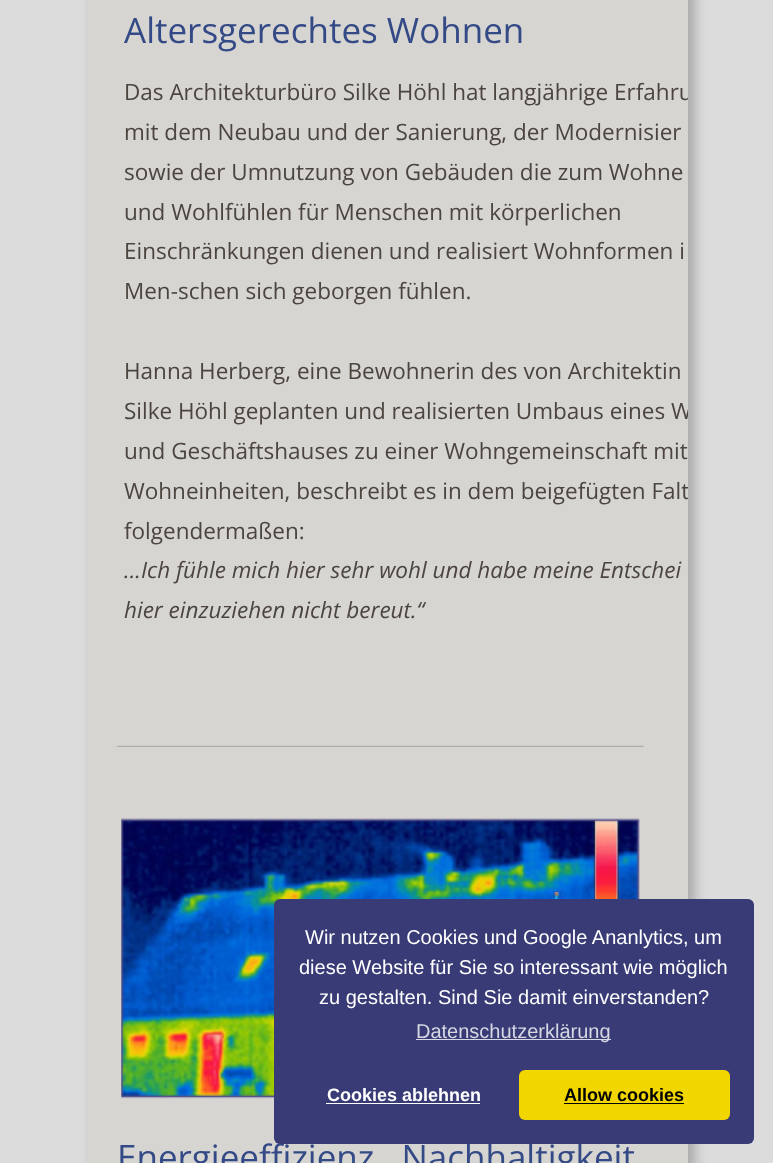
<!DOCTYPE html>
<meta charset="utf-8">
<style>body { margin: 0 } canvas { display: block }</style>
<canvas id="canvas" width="773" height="1163"></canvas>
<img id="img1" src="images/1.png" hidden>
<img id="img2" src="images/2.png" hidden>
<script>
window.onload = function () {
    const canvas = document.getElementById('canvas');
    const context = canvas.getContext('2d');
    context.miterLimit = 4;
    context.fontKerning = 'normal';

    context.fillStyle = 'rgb(220, 220, 220)';
    context.fillRect(0, 0, 773, 1163);
    context.fillStyle = 'rgba(0, 0, 0, 0.25)';
    context.filter = 'blur(7px)';
    context.beginPath();
    context.rect(94, -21, 600, 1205);
    context.fill();
    context.filter = 'none';
    context.fillStyle = 'rgb(215, 213, 210)';
    context.fillRect(88, 0, 600, 1163);
    context.drawImage(document.getElementById('img1'), 116, 745, 528, 2);
    context.drawImage(document.getElementById('img2'), 121, 818, 519, 281);
    context.font = '35px Open Sans';
    context.fillStyle = 'rgb(52, 74, 134)';
    context.fillText('Altersgerechtes Wohnen', 124, 43);
    context.save();
    context.beginPath();
    context.rect(88, 0, 600, 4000);
    context.clip();
    context.font = '22.5px Open Sans';
    context.fillStyle = 'rgb(76, 69, 63)';
    context.fillText('Das Architekturbüro Silke Höhl hat langjährige Erfahru', 124, 100);
    context.restore();
    context.font = '22.5px Open Sans';
    context.fillStyle = 'rgb(76, 69, 63)';
    context.fillText('mit dem Neubau und der Sanierung, der Modernisier', 124, 140);
    context.fillText('sowie der Umnutzung von Gebäuden die zum Wohne', 124, 180);
    context.fillText('und Wohlfühlen für Menschen mit körperlichen', 124, 220);
    context.fillText('Einschränkungen dienen und realisiert Wohnformen i', 124, 259);
    context.fillText('Men-schen sich geborgen fühlen.', 124, 299);
    context.fillText('Hanna Herberg, eine Bewohnerin des von Architektin', 124, 379);
    context.save();
    context.beginPath();
    context.rect(88, 0, 600, 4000);
    context.clip();
    context.fillText('Silke Höhl geplanten und realisierten Umbaus eines W', 124, 419);
    context.restore();
    context.fillText('und Geschäftshauses zu einer Wohngemeinschaft mit', 124, 459);
    context.save();
    context.beginPath();
    context.rect(88, 0, 600, 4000);
    context.clip();
    context.fillText('Wohneinheiten, beschreibt es in dem beigefügten Falt', 124, 499);
    context.restore();
    context.fillText('folgendermaßen:', 124, 539);
    context.font = 'italic 22.5px Open Sans';
    context.fillText('...Ich fühle mich hier sehr wohl und habe meine Entschei', 124, 578);
    context.fillText('hier einzuziehen nicht bereut.“', 124, 618);
    context.font = '35px Open Sans';
    context.fillStyle = 'rgb(52, 74, 134)';
    context.fillText('Energieeffizienz   Nachhaltigkeit', 117, 1170);
    context.fillStyle = 'rgb(56, 59, 117)';
    context.beginPath();
    context.roundRect(274, 899, 480, 245, 6);
    context.fill();
    context.font = '20px Liberation Sans';
    context.fillStyle = 'rgb(255, 255, 255)';
    context.fillText('Wir nutzen Cookies und Google Ananlytics, um', 305, 944);
    context.fillText('diese Website für Sie so interessant wie möglich', 299, 974);
    context.fillText('zu gestalten. Sind Sie damit einverstanden?', 319, 1004);
    context.fillStyle = 'rgb(215, 216, 227)';
    context.fillRect(416, 1039, 195, 1);
    context.fillText('Datenschutzerklärung', 416, 1038);
    context.font = 'bold 18px Liberation Sans';
    context.fillStyle = 'rgb(255, 255, 255)';
    context.fillText('Cookies ablehnen', 327, 1101);
    context.fillRect(326, 1103, 154, 1);
    context.fillStyle = 'rgb(241, 214, 0)';
    context.beginPath();
    context.roundRect(519, 1070, 211, 50, 6);
    context.fill();
    context.fillStyle = 'rgb(0, 0, 0)';
    context.fillText('Allow cookies', 564, 1101);
    context.fillRect(564, 1103, 120, 1);
};
</script>
